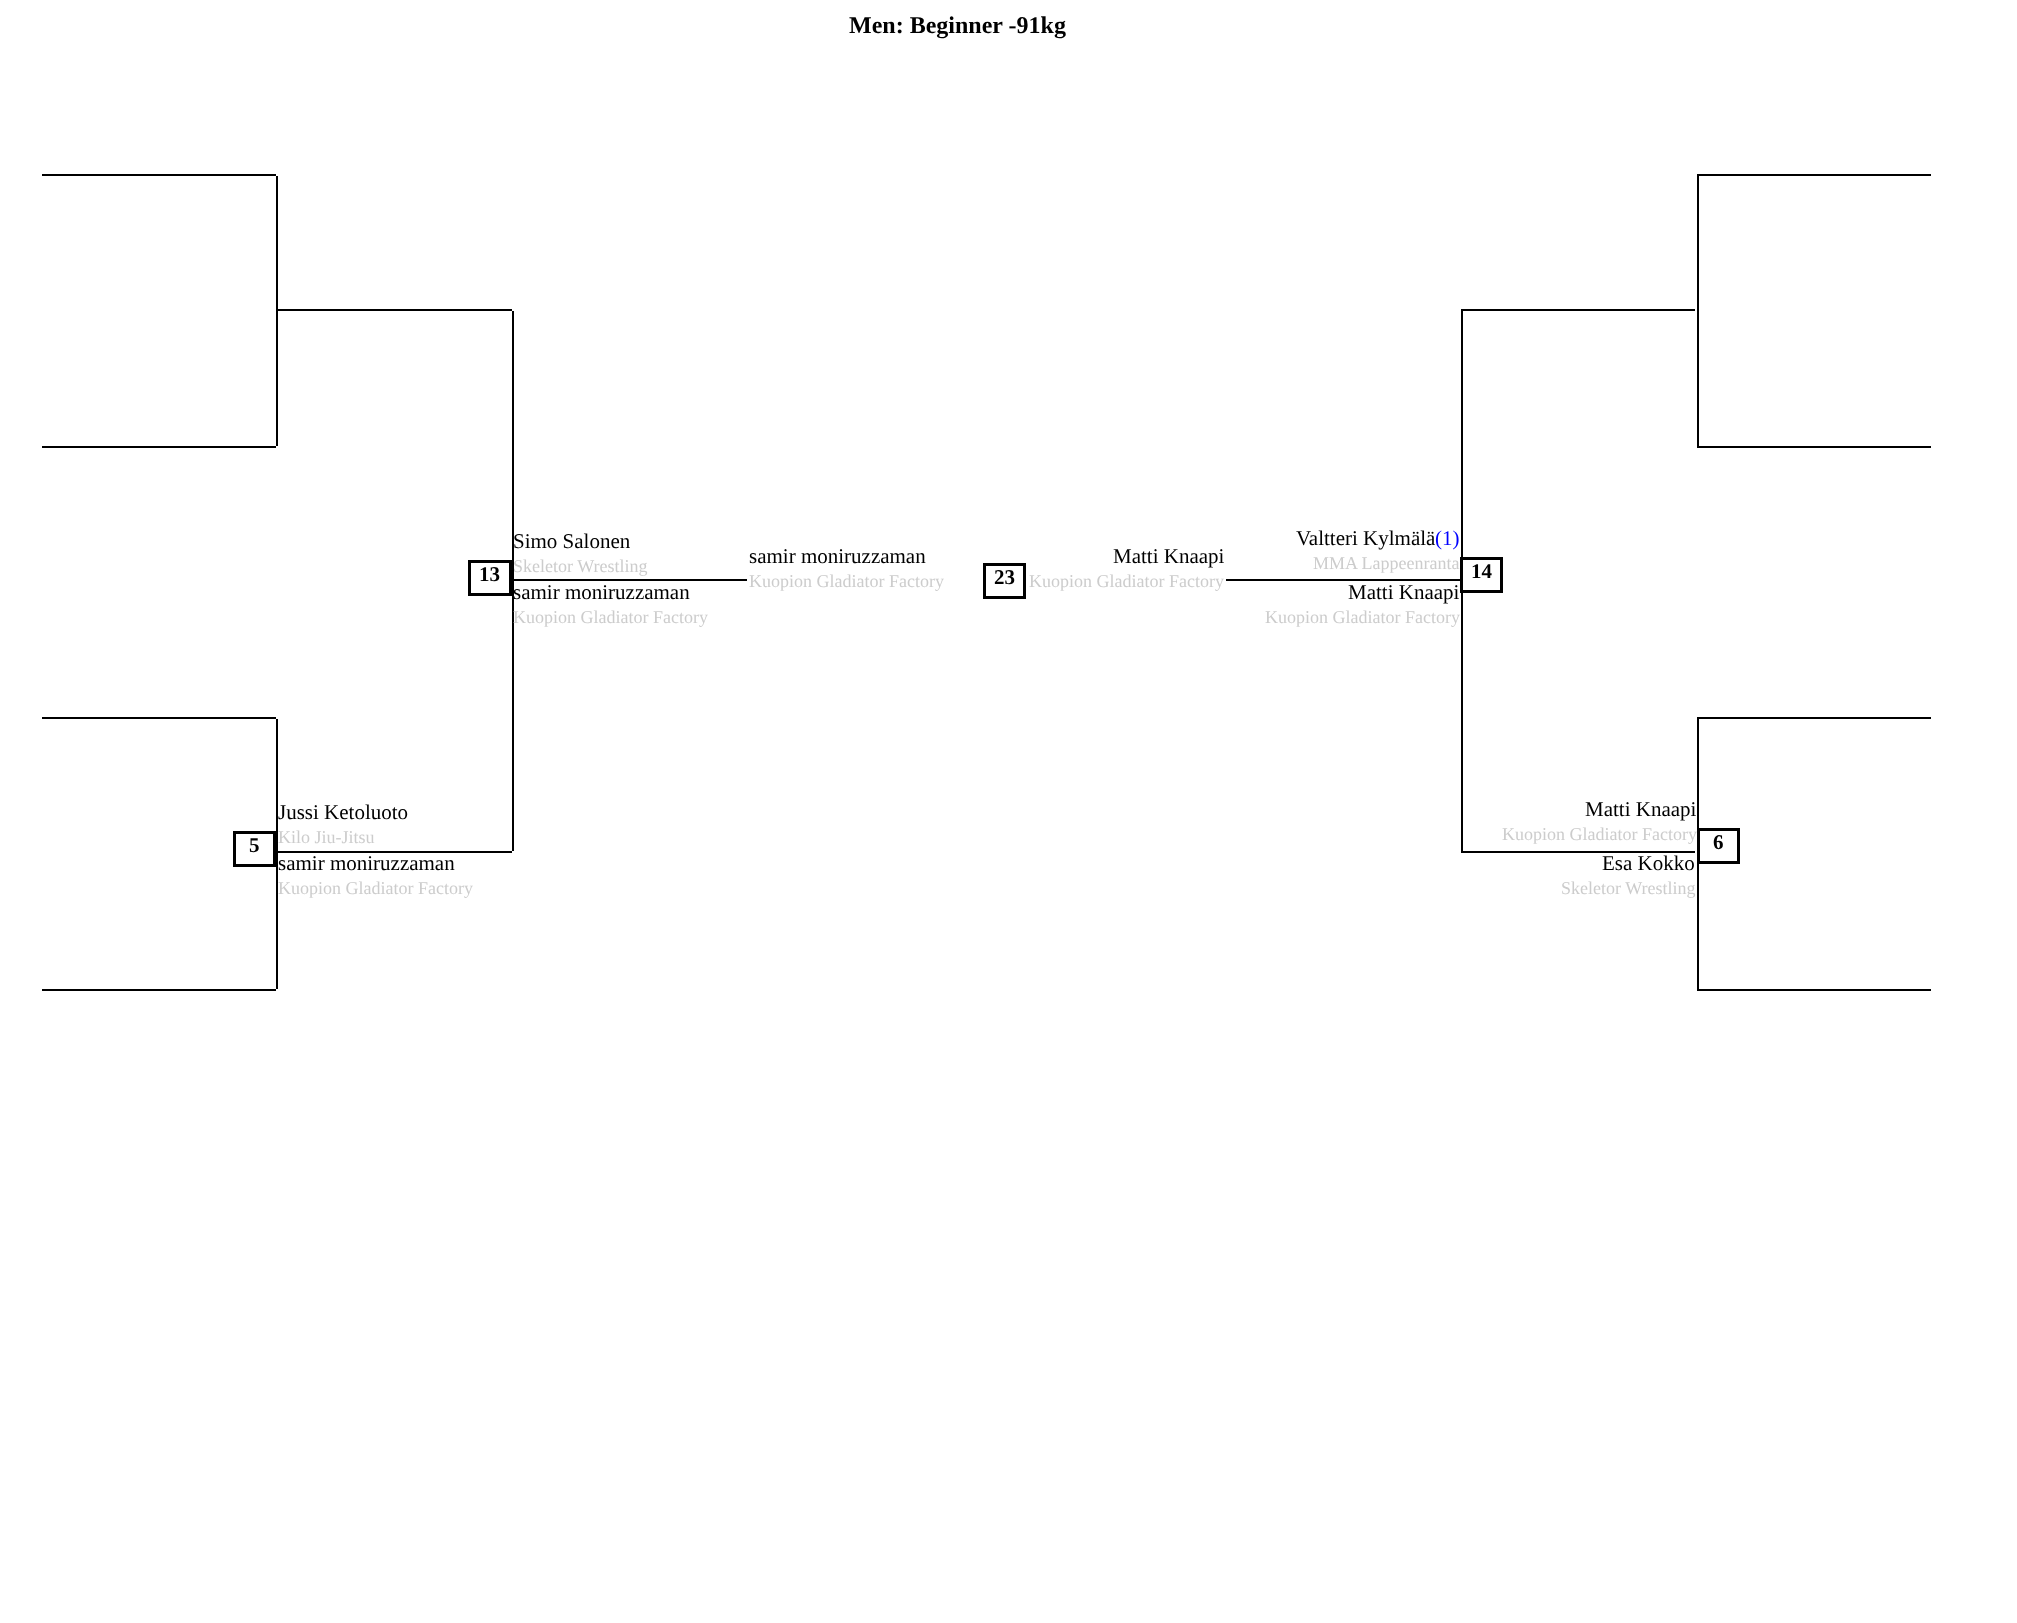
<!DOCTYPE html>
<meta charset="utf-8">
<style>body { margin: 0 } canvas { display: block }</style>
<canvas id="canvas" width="2017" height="1623"></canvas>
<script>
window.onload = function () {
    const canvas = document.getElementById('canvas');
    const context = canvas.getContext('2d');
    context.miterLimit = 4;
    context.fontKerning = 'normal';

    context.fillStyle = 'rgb(255, 255, 255)';
    context.fillRect(0, 0, 2017, 1623);
    context.fillStyle = 'rgb(0, 0, 0)';
    context.fillRect(42, 174, 234, 2);
    context.fillRect(276, 176, 2, 270);
    context.fillRect(42, 446, 234, 2);
    context.fillRect(42, 717, 234, 2);
    context.fillRect(276, 719, 2, 270);
    context.fillRect(42, 989, 234, 2);
    context.fillRect(512, 311, 2, 540);
    context.fillRect(513, 579, 234, 2);
    context.strokeStyle = 'rgb(0, 0, 0)';
    context.lineWidth = 3;
    context.strokeRect(469.5, 561.5, 41, 33);
    context.strokeRect(984.5, 564.5, 40, 33);
    context.fillRect(1226, 579, 234, 2);
    context.strokeRect(1461.5, 558.5, 40, 33);
    context.fillRect(1697, 174, 234, 2);
    context.fillRect(1697, 176, 2, 270);
    context.fillRect(1697, 446, 234, 2);
    context.fillRect(1697, 717, 234, 2);
    context.fillRect(1697, 719, 2, 109);
    context.fillRect(1697, 864, 2, 125);
    context.fillRect(1697, 989, 234, 2);
    context.fillRect(278, 309, 234, 2);
    context.strokeRect(234.5, 832.5, 40, 33);
    context.fillRect(278, 851, 234, 2);
    context.fillRect(1461, 309, 234, 2);
    context.fillRect(1461, 311, 2, 246);
    context.fillRect(1461, 593, 2, 258);
    context.strokeRect(1698.5, 829.5, 40, 33);
    context.fillRect(1461, 851, 234, 2);
    context.font = 'bold 24px Liberation Serif';
    context.fillText('Men: Beginner -91kg', 849, 33);
    context.font = 'bold 21px Liberation Serif';
    context.fillText('13', 479, 581);
    context.font = '21px Liberation Serif';
    context.fillText('Simo Salonen', 513, 548);
    context.font = '18px Liberation Serif';
    context.fillStyle = 'rgb(204, 204, 204)';
    context.fillText('Skeletor Wrestling', 513, 572);
    context.font = '21px Liberation Serif';
    context.fillStyle = 'rgb(0, 0, 0)';
    context.fillText('samir moniruzzaman', 513, 599);
    context.font = '18px Liberation Serif';
    context.fillStyle = 'rgb(204, 204, 204)';
    context.fillText('Kuopion Gladiator Factory', 513, 623);
    context.font = '21px Liberation Serif';
    context.fillStyle = 'rgb(0, 0, 0)';
    context.fillText('samir moniruzzaman', 749, 563);
    context.font = '18px Liberation Serif';
    context.fillStyle = 'rgb(204, 204, 204)';
    context.fillText('Kuopion Gladiator Factory', 749, 587);
    context.font = 'bold 21px Liberation Serif';
    context.fillStyle = 'rgb(0, 0, 0)';
    context.fillText('23', 994, 584);
    context.font = '21px Liberation Serif';
    context.fillText('Matti Knaapi', 1113, 563);
    context.font = '18px Liberation Serif';
    context.fillStyle = 'rgb(204, 204, 204)';
    context.fillText('Kuopion Gladiator Factory', 1029, 587);
    context.font = '21px Liberation Serif';
    context.fillStyle = 'rgb(0, 0, 0)';
    context.fillText('Valtteri Kylmälä', 1296, 545);
    context.fillStyle = 'rgb(0, 0, 255)';
    context.fillText('(1)', 1435, 545);
    context.font = '18px Liberation Serif';
    context.fillStyle = 'rgb(204, 204, 204)';
    context.fillText('MMA Lappeenranta', 1313, 569);
    context.font = 'bold 21px Liberation Serif';
    context.fillStyle = 'rgb(0, 0, 0)';
    context.fillText('14', 1471, 578);
    context.font = '21px Liberation Serif';
    context.fillText('Matti Knaapi', 1348, 599);
    context.font = '18px Liberation Serif';
    context.fillStyle = 'rgb(204, 204, 204)';
    context.fillText('Kuopion Gladiator Factory', 1265, 623);
    context.font = '21px Liberation Serif';
    context.fillStyle = 'rgb(0, 0, 0)';
    context.fillText('Jussi Ketoluoto', 278, 819);
    context.font = '18px Liberation Serif';
    context.fillStyle = 'rgb(204, 204, 204)';
    context.fillText('Kilo Jiu-Jitsu', 278, 843);
    context.font = 'bold 21px Liberation Serif';
    context.fillStyle = 'rgb(0, 0, 0)';
    context.fillText('5', 249, 852);
    context.font = '21px Liberation Serif';
    context.fillText('samir moniruzzaman', 278, 870);
    context.font = '18px Liberation Serif';
    context.fillStyle = 'rgb(204, 204, 204)';
    context.fillText('Kuopion Gladiator Factory', 278, 894);
    context.font = '21px Liberation Serif';
    context.fillStyle = 'rgb(0, 0, 0)';
    context.fillText('Matti Knaapi', 1585, 816);
    context.font = '18px Liberation Serif';
    context.fillStyle = 'rgb(204, 204, 204)';
    context.fillText('Kuopion Gladiator Factory', 1502, 840);
    context.font = 'bold 21px Liberation Serif';
    context.fillStyle = 'rgb(0, 0, 0)';
    context.fillText('6', 1713, 849);
    context.font = '21px Liberation Serif';
    context.fillText('Esa Kokko', 1602, 870);
    context.font = '18px Liberation Serif';
    context.fillStyle = 'rgb(204, 204, 204)';
    context.fillText('Skeletor Wrestling', 1561, 894);
};
</script>
